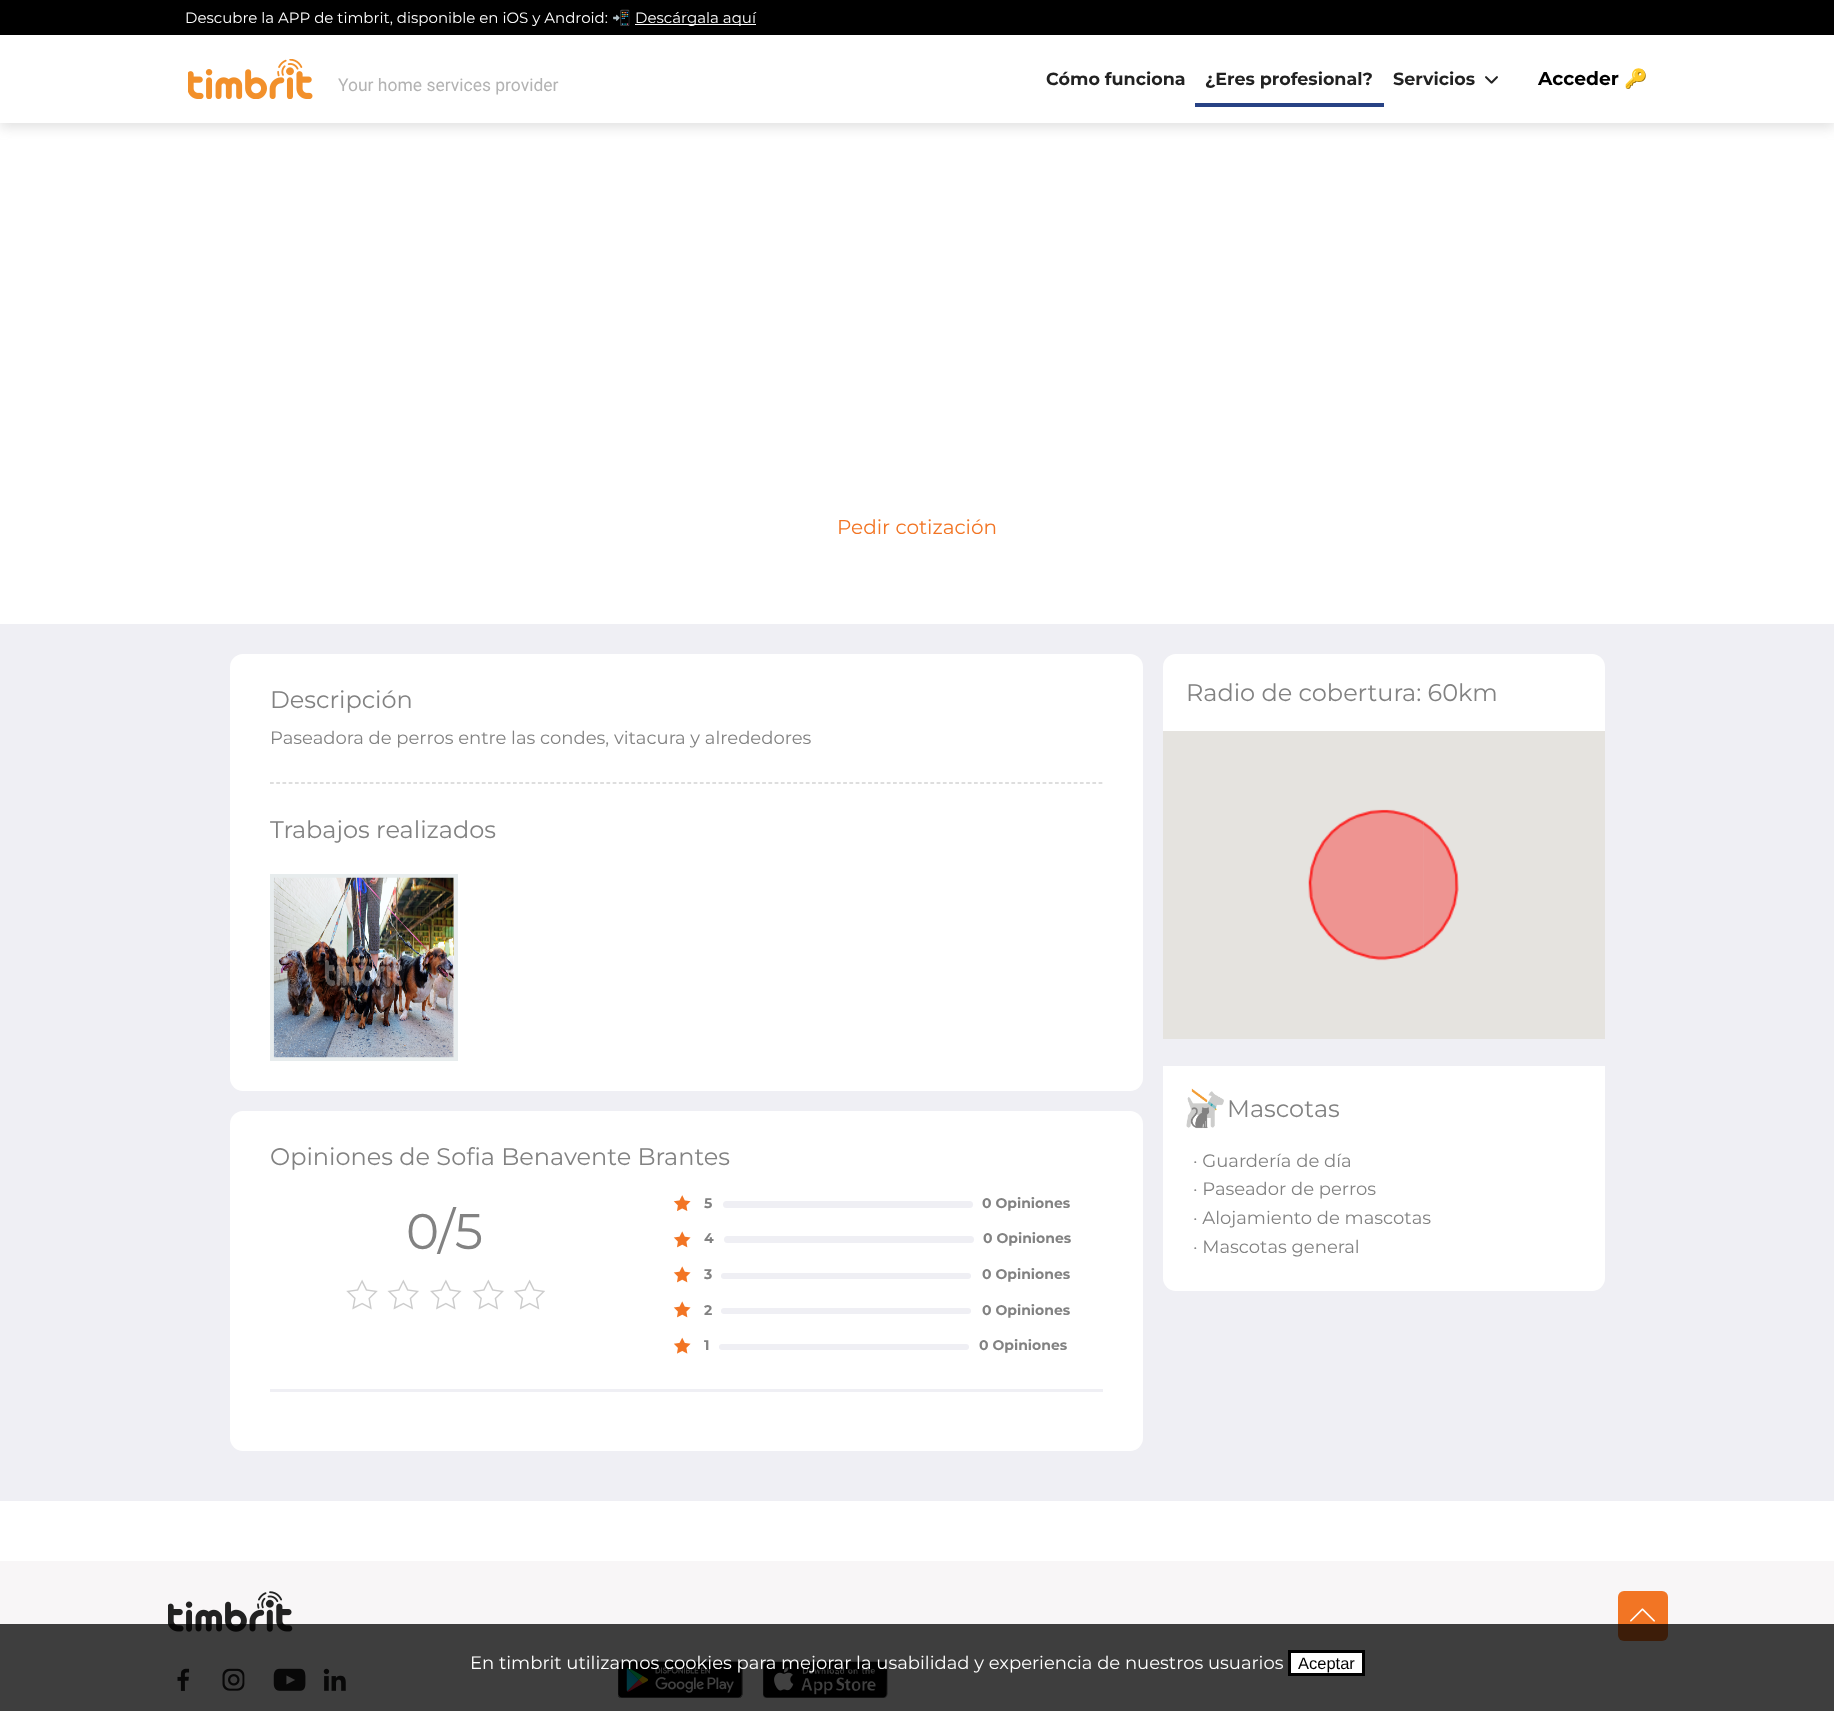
<!DOCTYPE html>
<meta charset="utf-8">
<style>body { margin: 0 } canvas { display: block }</style>
<canvas id="canvas" width="1834" height="1711"></canvas>
<img id="img1" src="images/1.png" hidden>
<img id="img2" src="images/2.png" hidden>
<img id="img3" src="images/3.png" hidden>
<img id="img4" src="images/4.png" hidden>
<img id="img5" src="images/5.png" hidden>
<img id="img6" src="images/6.png" hidden>
<img id="img7" src="images/7.png" hidden>
<img id="img8" src="images/8.png" hidden>
<img id="img9" src="images/9.png" hidden>
<img id="img10" src="images/10.png" hidden>
<img id="img11" src="images/11.png" hidden>
<img id="img12" src="images/12.png" hidden>
<img id="img13" src="images/13.png" hidden>
<img id="img14" src="images/14.png" hidden>
<img id="img15" src="images/15.png" hidden>
<img id="img16" src="images/16.png" hidden>
<img id="img17" src="images/17.png" hidden>
<img id="img18" src="images/18.png" hidden>
<img id="img19" src="images/19.png" hidden>
<img id="img20" src="images/20.png" hidden>
<img id="img21" src="images/21.png" hidden>
<script>
window.onload = function () {
    const canvas = document.getElementById('canvas');
    const context = canvas.getContext('2d');
    context.miterLimit = 4;
    context.fontKerning = 'normal';

    context.fillStyle = 'rgb(255, 255, 255)';
    context.fillRect(0, 0, 1834, 1711);
    context.fillStyle = 'rgba(142, 142, 142, 0.25)';
    context.filter = 'blur(6px)';
    context.beginPath();
    context.rect(0, 40, 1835, 88);
    context.fill();
    context.filter = 'none';
    context.fillStyle = 'rgb(0, 0, 0)';
    context.fillRect(0, 0, 1834, 35);
    context.fillStyle = 'rgb(255, 255, 255)';
    context.fillRect(635, 24, 121, 1);
    context.fillRect(0, 35, 1834, 88);
    context.drawImage(document.getElementById('img1'), 188, 59, 125, 40);
    context.fillStyle = 'rgb(40, 66, 133)';
    context.fillRect(1195, 103, 189, 4);
    context.drawImage(document.getElementById('img2'), 1485, 76, 13, 8);
    context.fillStyle = 'rgb(239, 239, 244)';
    context.fillRect(0, 624, 1834, 877);
    context.fillStyle = 'rgb(255, 255, 255)';
    context.beginPath();
    context.roundRect(230, 654, 913, 437, 13);
    context.fill();
    context.beginPath();
    context.moveTo(270, 783);
    context.lineTo(1102.5, 783);
    context.strokeStyle = 'rgb(190, 190, 190)';
    context.lineWidth = 1.2;
    context.setLineDash([3.75, 2.48]);
    context.stroke();
    context.strokeStyle = 'rgb(231, 236, 237)';
    context.lineWidth = 4;
    context.setLineDash([]);
    context.strokeRect(272, 876, 184, 183);
    context.drawImage(document.getElementById('img3'), 273, 877, 181, 181);
    context.beginPath();
    context.roundRect(1163, 654, 442, 312, [13, 13, 0, 0]);
    context.fill();
    context.fillStyle = 'rgb(229, 227, 223)';
    context.fillRect(1163, 731, 442, 308);
    context.drawImage(document.getElementById('img4'), 1308, 809, 116, 152);
    context.drawImage(document.getElementById('img5'), 1423, 821, 36, 127);
    context.fillStyle = 'rgb(255, 255, 255)';
    context.beginPath();
    context.roundRect(1163, 1066, 442, 225, [0, 0, 13, 13]);
    context.fill();
    context.drawImage(document.getElementById('img6'), 1186, 1088, 38, 41);
    context.beginPath();
    context.roundRect(230, 1111, 913, 340, 13);
    context.fill();
    context.fillStyle = 'rgb(239, 239, 244)';
    context.fillRect(270, 1389, 833, 3);
    context.drawImage(document.getElementById('img7'), 346, 1279, 32, 31);
    context.drawImage(document.getElementById('img8'), 387, 1279, 32, 31);
    context.drawImage(document.getElementById('img9'), 430, 1279, 32, 31);
    context.drawImage(document.getElementById('img8'), 472, 1279, 32, 31);
    context.drawImage(document.getElementById('img10'), 514, 1279, 31, 31);
    context.drawImage(document.getElementById('img11'), 673, 1195, 18, 16);
    context.beginPath();
    context.roundRect(723, 1201, 250, 7, 3.5);
    context.fill();
    context.drawImage(document.getElementById('img12'), 673, 1231, 18, 17);
    context.beginPath();
    context.roundRect(724, 1236, 250, 7, 3.5);
    context.fill();
    context.drawImage(document.getElementById('img12'), 673, 1266, 18, 17);
    context.beginPath();
    context.roundRect(721, 1273, 250, 6, 3);
    context.fill();
    context.drawImage(document.getElementById('img12'), 673, 1301, 18, 17);
    context.beginPath();
    context.roundRect(721, 1308, 250, 6, 3);
    context.fill();
    context.drawImage(document.getElementById('img13'), 673, 1337, 18, 17);
    context.beginPath();
    context.roundRect(719, 1344, 250, 6, 3);
    context.fill();
    context.fillStyle = 'rgb(248, 246, 247)';
    context.fillRect(0, 1561, 1834, 150);
    context.drawImage(document.getElementById('img14'), 168, 1591, 125, 41);
    context.drawImage(document.getElementById('img15'), 177, 1668, 13, 23);
    context.drawImage(document.getElementById('img16'), 222, 1668, 23, 23);
    context.drawImage(document.getElementById('img17'), 273, 1668, 33, 23);
    context.drawImage(document.getElementById('img18'), 323, 1668, 23, 23);
    context.fillStyle = 'rgb(242, 117, 36)';
    context.beginPath();
    context.roundRect(1618, 1591, 50, 50, 6);
    context.fill();
    context.drawImage(document.getElementById('img19'), 1630, 1608, 25, 14);
    context.drawImage(document.getElementById('img20'), 618, 1661, 125, 37);
    context.drawImage(document.getElementById('img21'), 763, 1661, 125, 37);
    context.fillStyle = 'rgba(0, 0, 0, 0.75)';
    context.fillRect(0, 1624, 1834, 87);
    context.fillStyle = 'rgb(255, 255, 255)';
    context.beginPath();
    context.rect(1289.5, 1651.5, 74, 23);
    context.fill();
    context.strokeStyle = 'rgb(0, 0, 0)';
    context.lineWidth = 3;
    context.stroke();
    context.font = '15px Montserrat';
    context.fillText('Descubre la APP de timbrit, disponible en iOS y Android:', 185, 23);
    context.font = '15px Noto Color Emoji';
    context.fillText('📲', 612, 23);
    context.font = '15px Montserrat';
    context.fillText('Descárgala aquí', 635, 23);
    context.font = '17.5px Roboto';
    context.fillStyle = 'rgb(179, 179, 179)';
    context.fillText('Your home services provider', 338, 91);
    context.font = 'bold 17.5px Montserrat';
    context.fillStyle = 'rgb(34, 34, 34)';
    context.fillText('Cómo funciona', 1046, 85);
    context.fillText('¿Eres profesional?', 1205, 85);
    context.fillText('Servicios', 1393, 85);
    context.font = 'bold 18.75px Montserrat';
    context.fillStyle = 'rgb(0, 0, 0)';
    context.fillText('Acceder', 1538, 85);
    context.font = 'bold 18.75px Noto Color Emoji';
    context.fillText('🔑', 1624, 85);
    context.font = '20px Montserrat';
    context.fillStyle = 'rgb(242, 117, 36)';
    context.fillText('Pedir cotización', 837, 534);
    context.font = '24px Montserrat';
    context.fillStyle = 'rgb(130, 130, 130)';
    context.fillText('Descripción', 270, 708);
    context.font = '18px Montserrat';
    context.fillText('Paseadora de perros entre las condes, vitacura y alrededores', 270, 744);
    context.font = '24px Montserrat';
    context.fillText('Trabajos realizados', 270, 838);
    context.fillText('Radio de cobertura: 60km', 1186, 701);
    context.fillText('Mascotas', 1227, 1117);
    context.font = '18px Montserrat';
    context.fillText('· Guardería de día', 1193, 1167);
    context.fillText('· Paseador de perros', 1193, 1195);
    context.fillText('· Alojamiento de mascotas', 1193, 1224);
    context.fillText('· Mascotas general', 1193, 1253);
    context.font = '24px Montserrat';
    context.fillText('Opiniones de Sofia Benavente Brantes', 270, 1165);
    context.font = '50px Montserrat';
    context.fillText('0/5', 406, 1249);
    context.font = 'bold 14px Montserrat';
    context.fillText('5', 704, 1208);
    context.fillText('0 Opiniones', 982, 1208);
    context.fillText('4', 704, 1243);
    context.fillText('0 Opiniones', 983, 1243);
    context.fillText('3', 704, 1279);
    context.fillText('0 Opiniones', 982, 1279);
    context.fillText('2', 704, 1315);
    context.fillText('0 Opiniones', 982, 1315);
    context.fillText('1', 704, 1350);
    context.fillText('0 Opiniones', 979, 1350);
    context.font = '18px Montserrat';
    context.fillStyle = 'rgb(255, 255, 255)';
    context.fillText('En timbrit utilizamos cookies para mejorar la usabilidad y experiencia de nuestros usuarios', 470, 1669);
    context.font = '16.5px Liberation Sans';
    context.fillStyle = 'rgb(0, 0, 0)';
    context.fillText('Aceptar', 1298, 1669);
};
</script>
